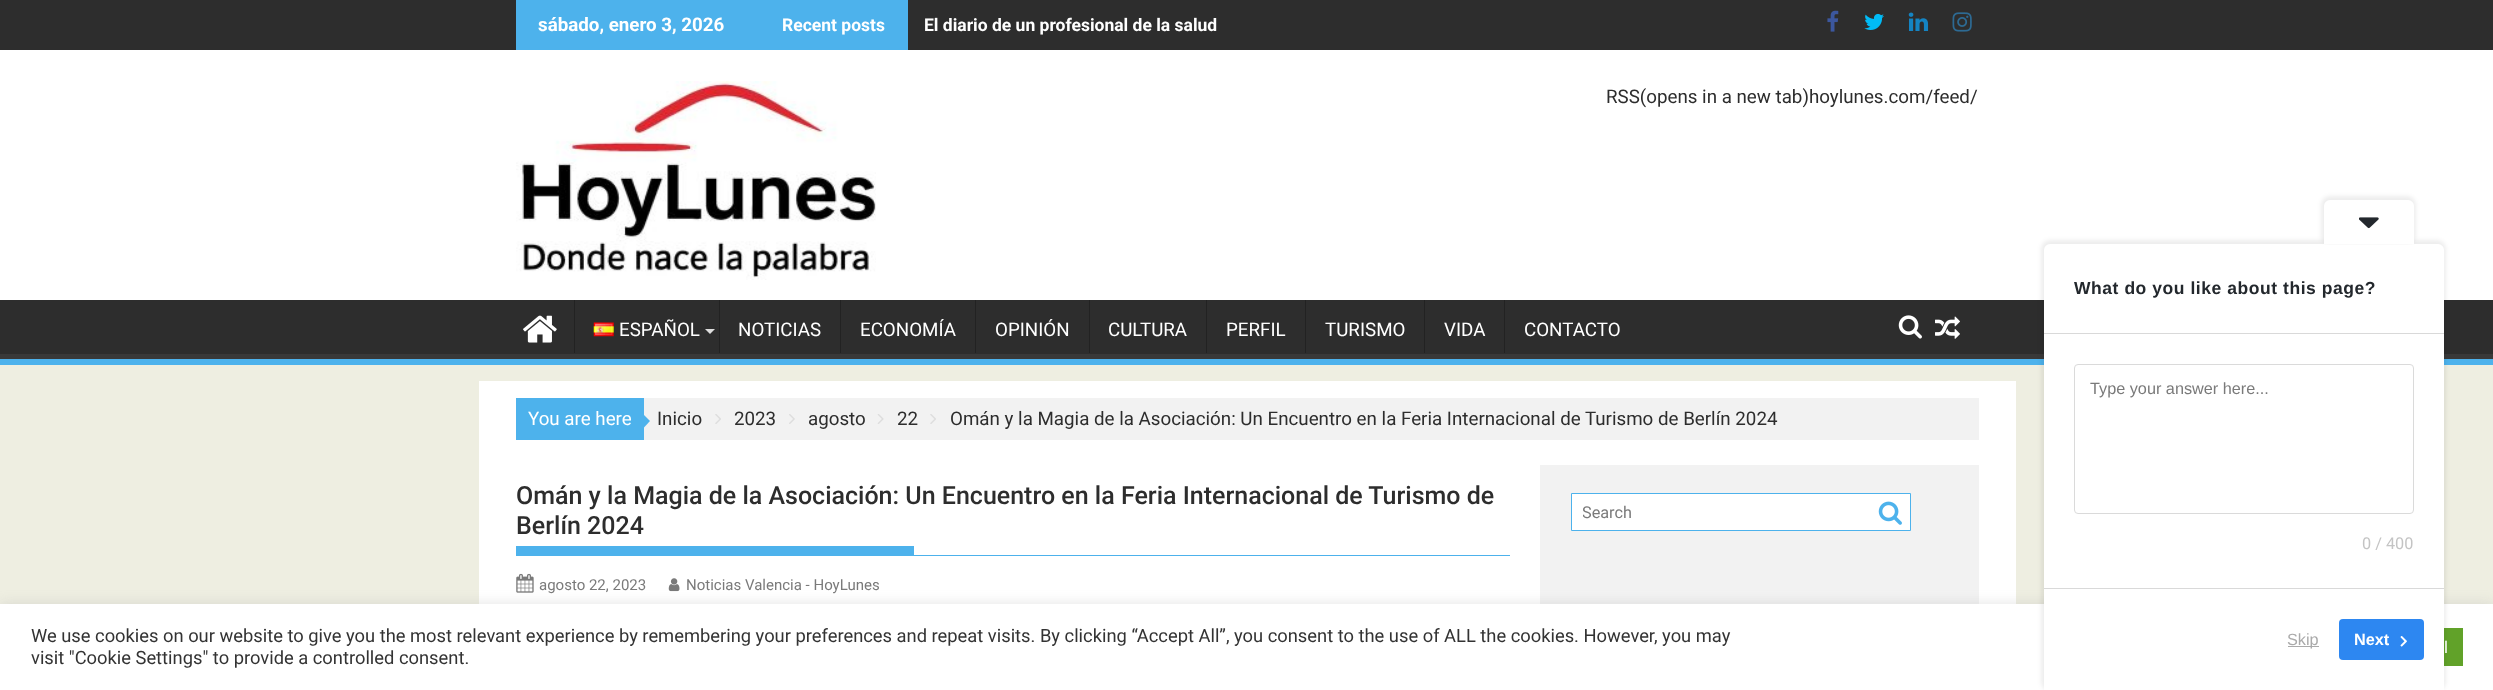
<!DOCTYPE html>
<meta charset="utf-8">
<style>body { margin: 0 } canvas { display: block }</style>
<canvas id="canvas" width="2493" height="690"></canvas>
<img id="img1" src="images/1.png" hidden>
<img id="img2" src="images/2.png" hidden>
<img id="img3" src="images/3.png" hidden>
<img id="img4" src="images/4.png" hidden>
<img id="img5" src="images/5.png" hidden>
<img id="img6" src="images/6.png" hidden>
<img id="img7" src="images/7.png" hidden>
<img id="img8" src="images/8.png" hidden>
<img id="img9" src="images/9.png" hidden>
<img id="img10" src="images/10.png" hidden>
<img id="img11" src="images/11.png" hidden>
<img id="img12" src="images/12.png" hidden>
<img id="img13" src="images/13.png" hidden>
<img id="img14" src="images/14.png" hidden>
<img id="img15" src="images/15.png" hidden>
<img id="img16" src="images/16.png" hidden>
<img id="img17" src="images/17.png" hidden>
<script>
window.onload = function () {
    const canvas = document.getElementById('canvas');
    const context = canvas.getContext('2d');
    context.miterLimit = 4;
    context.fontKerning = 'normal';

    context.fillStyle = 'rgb(238, 238, 225)';
    context.fillRect(0, 0, 2493, 690);
    context.fillStyle = 'rgb(45, 45, 45)';
    context.fillRect(0, 0, 2493, 50);
    context.fillStyle = 'rgb(77, 178, 236)';
    context.fillRect(516, 0, 392, 50);
    context.drawImage(document.getElementById('img1'), 1827, 10, 12, 22);
    context.drawImage(document.getElementById('img2'), 1864, 13, 20, 17);
    context.drawImage(document.getElementById('img3'), 1908, 12, 21, 19);
    context.drawImage(document.getElementById('img4'), 1952, 12, 20, 20);
    context.fillStyle = 'rgb(255, 255, 255)';
    context.fillRect(0, 50, 2493, 250);
    context.drawImage(document.getElementById('img5'), 516, 81, 360, 199);
    context.fillStyle = 'rgb(45, 45, 45)';
    context.fillRect(0, 300, 2493, 54);
    context.save();
    context.beginPath();
    context.rect(0, 300, 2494, 59);
    context.clip();
    context.fillStyle = 'rgb(57, 57, 57)';
    context.beginPath();
    context.moveTo(-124, 176);
    context.lineTo(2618, 176);
    context.lineTo(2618, 482);
    context.lineTo(-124, 482);
    context.closePath();
    context.moveTo(-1, 292);
    context.lineTo(2492, 292);
    context.bezierCurveTo(2493, 292, 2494, 293, 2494, 294);
    context.lineTo(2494, 352);
    context.bezierCurveTo(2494, 353, 2493, 354, 2492, 354);
    context.lineTo(-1, 354);
    context.bezierCurveTo(-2, 354, -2, 353, -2, 352);
    context.lineTo(-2, 294);
    context.bezierCurveTo(-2, 293, -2, 292, -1, 292);
    context.closePath();
    context.fill('evenodd');
    context.restore();
    context.fillStyle = 'rgb(77, 178, 236)';
    context.fillRect(0, 359, 2493, 6);
    context.drawImage(document.getElementById('img6'), 523, 315, 34, 28);
    context.fillStyle = 'rgb(34, 34, 34)';
    context.fillRect(574, 300, 1, 53);
    context.drawImage(document.getElementById('img7'), 593, 322, 21, 15);
    context.fillStyle = 'rgb(221, 221, 221)';
    context.beginPath();
    context.moveTo(705, 329);
    context.lineTo(715, 329);
    context.lineTo(710, 334);
    context.closePath();
    context.fill();
    context.fillStyle = 'rgb(34, 34, 34)';
    context.fillRect(719, 300, 1, 53);
    context.fillRect(840, 300, 1, 53);
    context.fillRect(975, 300, 1, 53);
    context.fillRect(1089, 300, 1, 53);
    context.fillRect(1206, 300, 1, 53);
    context.fillRect(1305, 300, 1, 53);
    context.fillRect(1424, 300, 1, 53);
    context.fillRect(1504, 300, 1, 53);
    context.drawImage(document.getElementById('img8'), 1898, 315, 24, 24);
    context.drawImage(document.getElementById('img9'), 1935, 316, 25, 23);
    context.fillStyle = 'rgb(255, 255, 255)';
    context.fillRect(479, 381, 1537, 223);
    context.fillStyle = 'rgb(77, 178, 236)';
    context.fillRect(516, 398, 128, 42);
    context.fillStyle = 'rgb(242, 242, 242)';
    context.fillRect(644, 398, 1335, 42);
    context.fillStyle = 'rgb(77, 178, 236)';
    context.beginPath();
    context.moveTo(644, 427.5);
    context.lineTo(644, 415);
    context.lineTo(650, 421);
    context.closePath();
    context.fill();
    context.drawImage(document.getElementById('img10'), 715, 414, 6, 10);
    context.drawImage(document.getElementById('img11'), 789, 414, 6, 10);
    context.drawImage(document.getElementById('img12'), 877, 414, 7, 10);
    context.drawImage(document.getElementById('img10'), 930, 414, 6, 10);
    context.fillRect(516, 555, 994, 1);
    context.fillRect(516, 546, 398, 9);
    context.drawImage(document.getElementById('img13'), 516, 573, 18, 20);
    context.drawImage(document.getElementById('img14'), 668, 578, 12, 14);
    context.fillStyle = 'rgb(242, 242, 242)';
    context.fillRect(1540, 465, 439, 139);
    context.fillStyle = 'rgb(255, 255, 255)';
    context.beginPath();
    context.rect(1571.5, 493.5, 339, 37);
    context.fill();
    context.strokeStyle = 'rgb(77, 178, 236)';
    context.stroke();
    context.drawImage(document.getElementById('img15'), 1878, 501, 24, 24);
    context.fillStyle = 'rgba(172, 171, 171, 0.3)';
    context.filter = 'blur(6px)';
    context.beginPath();
    context.rect(0, 603, 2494, 86);
    context.fill();
    context.filter = 'none';
    context.fillStyle = 'rgb(255, 255, 255)';
    context.fillRect(0, 604, 2493, 86);
    context.fillStyle = 'rgb(97, 162, 41)';
    context.fillRect(2444, 628, 19, 38);
    context.fillStyle = 'rgba(0, 0, 0, 0.07)';
    context.filter = 'blur(2px)';
    context.beginPath();
    context.roundRect(2041, 240, 405, 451, 9);
    context.fill();
    context.filter = 'none';
    context.fillStyle = 'rgb(255, 255, 255)';
    context.beginPath();
    context.roundRect(2044, 244, 400, 446, [6, 6, 0, 0]);
    context.fill();
    context.save();
    context.beginPath();
    context.moveTo(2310, 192);
    context.lineTo(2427, 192);
    context.lineTo(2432, 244.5);
    context.lineTo(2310, 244.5);
    context.closePath();
    context.clip();
    context.fillStyle = 'rgba(0, 0, 0, 0.07)';
    context.filter = 'blur(2px)';
    context.beginPath();
    context.roundRect(2321, 196, 95, 49, 9);
    context.fill();
    context.filter = 'none';
    context.restore();
    context.beginPath();
    context.roundRect(2324, 200, 90, 44, [6, 6, 0, 0]);
    context.fill();
    context.drawImage(document.getElementById('img16'), 2359, 217, 20, 12);
    context.fillStyle = 'rgb(217, 217, 217)';
    context.fillRect(2044, 333, 400, 1);
    context.fillRect(2044, 588, 400, 1);
    context.beginPath();
    context.roundRect(2074.5, 364.5, 339, 149, 3.5);
    context.strokeStyle = 'rgb(218, 218, 218)';
    context.stroke();
    context.fillStyle = 'rgb(170, 170, 170)';
    context.fillRect(2288, 646, 31, 1);
    context.fillStyle = 'rgb(45, 135, 241)';
    context.beginPath();
    context.roundRect(2339, 619, 85, 41, 4);
    context.fill();
    context.drawImage(document.getElementById('img17'), 2400, 636, 7, 11);
    context.font = 'bold 18.75px Roboto';
    context.fillStyle = 'rgb(255, 255, 255)';
    context.fillText('sábado, enero 3, 2026', 538, 31);
    context.font = 'bold 17.5px Roboto';
    context.fillText('Recent posts', 782, 31);
    context.fillText('El diario de un profesional de la salud', 924, 31);
    context.font = '18.75px Roboto';
    context.fillStyle = 'rgb(45, 45, 45)';
    context.fillText('RSS(opens in a new tab)hoylunes.com/feed/', 1606, 103);
    context.fillStyle = 'rgb(255, 255, 255)';
    context.fillText('ESPAÑOL', 619, 336);
    context.fillText('NOTICIAS', 738, 336);
    context.fillText('ECONOMÍA', 860, 336);
    context.fillText('OPINIÓN', 995, 336);
    context.fillText('CULTURA', 1108, 336);
    context.fillText('PERFIL', 1226, 336);
    context.fillText('TURISMO', 1325, 336);
    context.fillText('VIDA', 1444, 336);
    context.fillText('CONTACTO', 1524, 336);
    context.fillText('You are here', 528, 425);
    context.fillStyle = 'rgb(45, 45, 45)';
    context.fillText('Inicio', 657, 425);
    context.fillText('2023', 734, 425);
    context.fillText('agosto', 808, 425);
    context.fillText('22', 897, 425);
    context.fillText('Omán y la Magia de la Asociación: Un Encuentro en la Feria Internacional de Turismo de Berlín 2024', 950, 425);
    context.font = '500 25px Roboto';
    context.fillText('Omán y la Magia de la Asociación: Un Encuentro en la Feria Internacional de Turismo de', 516, 504);
    context.fillText('Berlín 2024', 516, 534);
    context.font = '15px Roboto';
    context.fillStyle = 'rgb(122, 122, 122)';
    context.fillText('agosto 22, 2023', 539, 590);
    context.fillText('Noticias Valencia - HoyLunes', 686, 590);
    context.save();
    context.beginPath();
    context.rect(1583, 503, 298, 18);
    context.clip();
    context.font = '16.25px Roboto';
    context.fillText('Search', 1582, 518);
    context.restore();
    context.letterSpacing = '0.55px';
    context.font = 'bold 17.5px Liberation Sans';
    context.fillStyle = 'rgb(35, 40, 45)';
    context.fillText('What do you like about this page?', 2074, 294);
    context.letterSpacing = '0px';
    context.font = '16.25px Liberation Sans';
    context.fillStyle = 'rgb(122, 122, 122)';
    context.fillText('Type your answer here...', 2090, 394);
    context.font = '16.25px Roboto';
    context.fillStyle = 'rgb(196, 196, 196)';
    context.fillText('0 / 400', 2362, 549);
    context.font = '16.25px Liberation Sans';
    context.fillStyle = 'rgb(170, 170, 170)';
    context.fillText('Skip', 2287, 645);
    context.font = 'bold 16.25px Liberation Sans';
    context.fillStyle = 'rgb(255, 255, 255)';
    context.fillText('Next', 2354, 645);
    context.font = '18.33px Roboto';
    context.fillStyle = 'rgb(51, 51, 51)';
    context.fillText('We use cookies on our website to give you the most relevant experience by remembering your preferences and repeat visits. By clicking “Accept All”, you consent to the use of ALL the cookies. However, you may', 31, 642);
    context.fillText('visit "Cookie Settings" to provide a controlled consent.', 31, 664);
    context.font = '16.25px Roboto';
    context.fillStyle = 'rgb(255, 255, 255)';
    context.fillText('l', 2444, 653);
};
</script>
